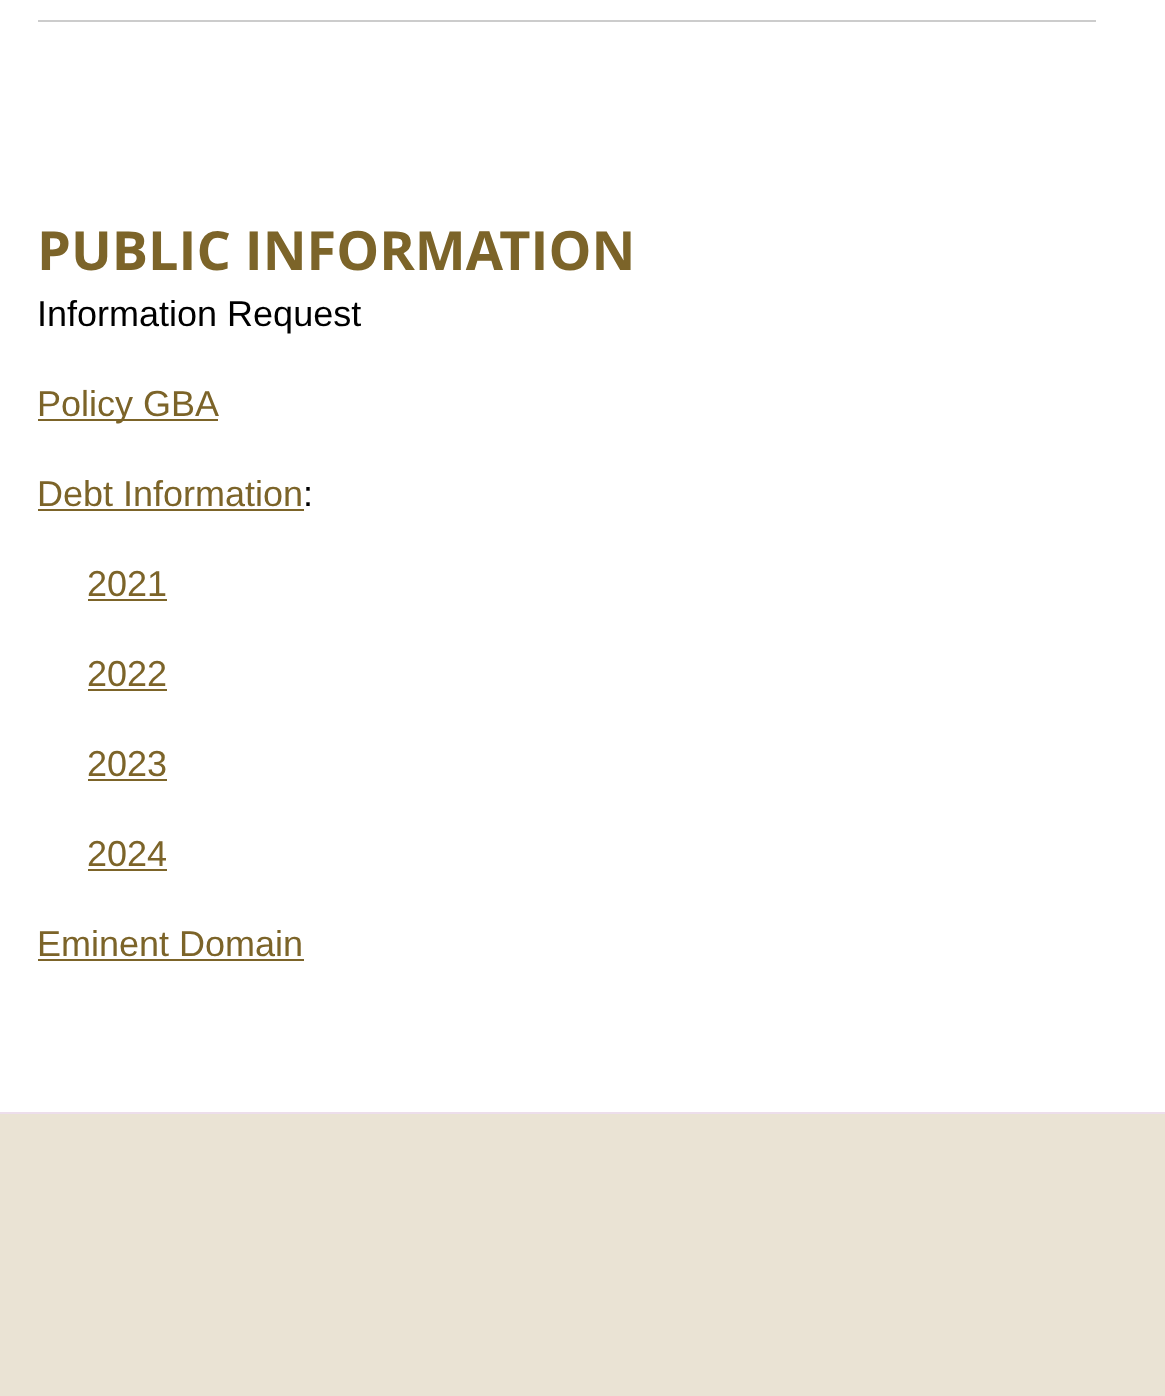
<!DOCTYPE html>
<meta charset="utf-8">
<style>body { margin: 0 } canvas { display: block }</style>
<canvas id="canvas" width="1165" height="1396"></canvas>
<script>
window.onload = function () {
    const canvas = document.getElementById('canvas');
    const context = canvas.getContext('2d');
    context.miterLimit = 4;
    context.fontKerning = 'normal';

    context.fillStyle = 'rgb(255, 255, 255)';
    context.fillRect(0, 0, 1165, 1396);
    context.fillStyle = 'rgb(204, 204, 204)';
    context.fillRect(38, 20, 1058, 2);
    context.fillStyle = 'rgb(124, 100, 41)';
    context.fillRect(38, 419, 180, 2);
    context.fillRect(38, 509, 266, 2);
    context.fillRect(88, 599, 79, 2);
    context.fillRect(88, 689, 79, 2);
    context.fillRect(88, 779, 79, 2);
    context.fillRect(88, 869, 79, 2);
    context.fillRect(38, 959, 266, 2);
    context.fillStyle = 'rgb(234, 227, 212)';
    context.fillRect(0, 1114, 1165, 282);
    context.fillStyle = 'rgb(237, 222, 235)';
    context.fillRect(0, 1112, 1165, 2);
    context.font = 'bold 54px Open Sans';
    context.fillStyle = 'rgb(124, 100, 41)';
    context.fillText('PUBLIC INFORMATION', 37, 270);
    context.font = '36px Liberation Sans';
    context.fillStyle = 'rgb(0, 0, 0)';
    context.fillText('Information Request', 37, 326);
    context.fillStyle = 'rgb(124, 100, 41)';
    context.fillText('Policy GBA', 37, 416);
    context.fillText('Debt Information', 37, 506);
    context.fillStyle = 'rgb(0, 0, 0)';
    context.fillText(':', 303, 506);
    context.fillStyle = 'rgb(124, 100, 41)';
    context.fillText('2021', 87, 596);
    context.fillText('2022', 87, 686);
    context.fillText('2023', 87, 776);
    context.fillText('2024', 87, 866);
    context.fillText('Eminent Domain', 37, 956);
};
</script>
